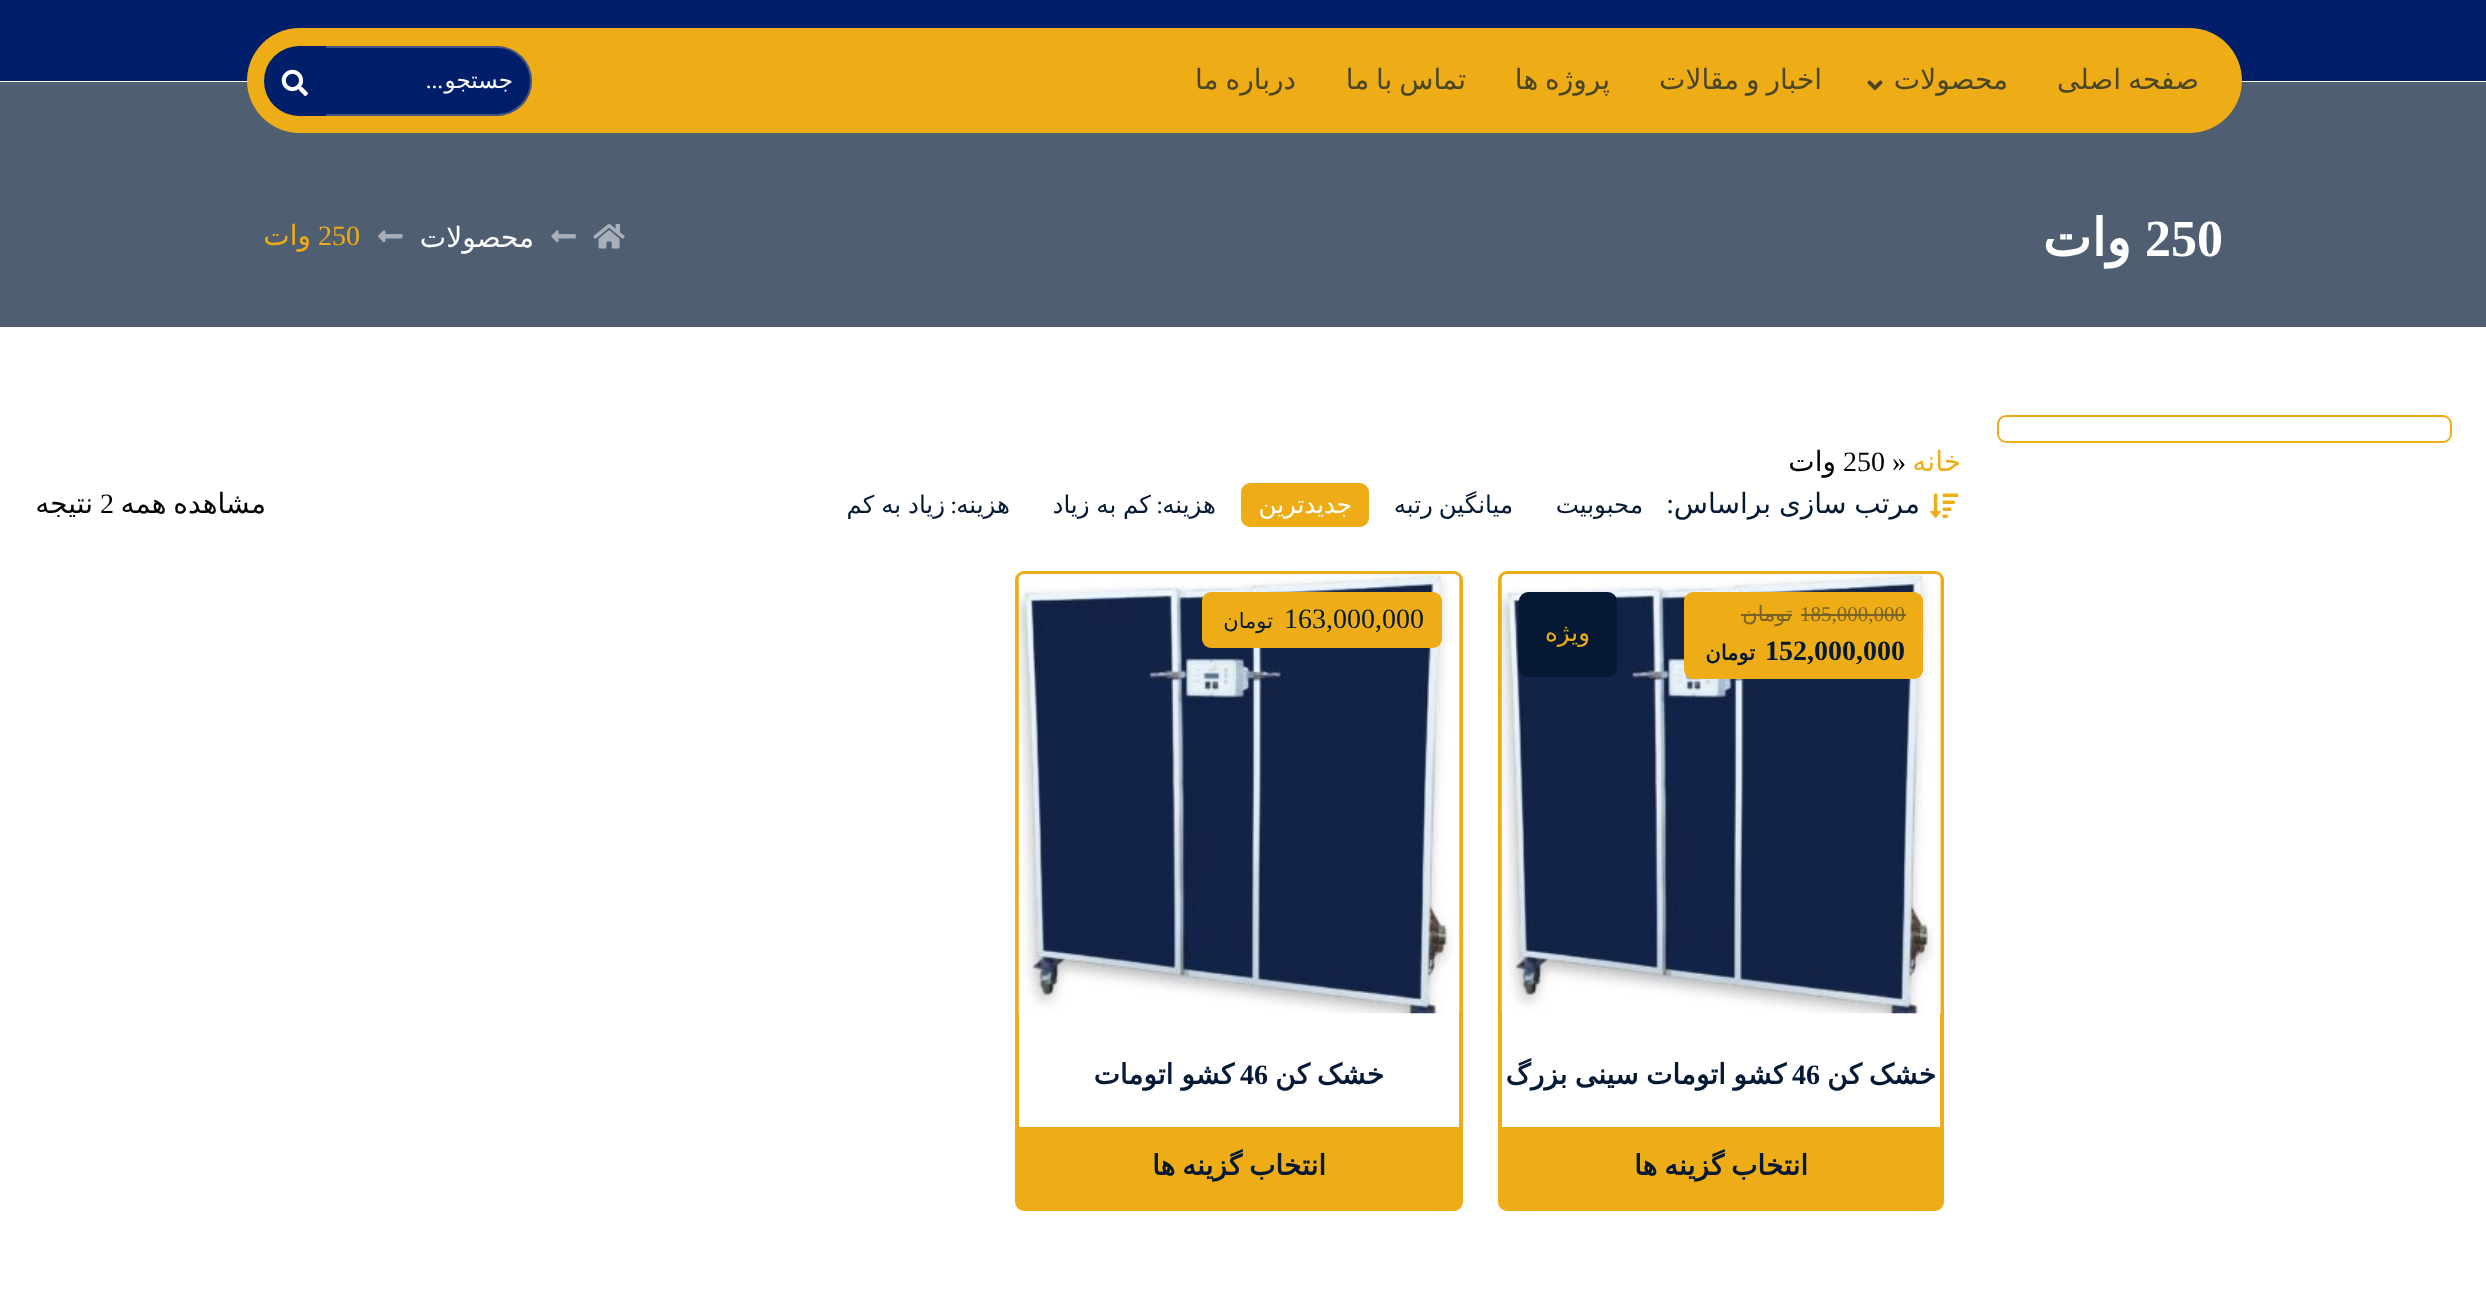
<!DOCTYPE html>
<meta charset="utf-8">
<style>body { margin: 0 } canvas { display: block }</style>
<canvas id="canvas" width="2486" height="1290"></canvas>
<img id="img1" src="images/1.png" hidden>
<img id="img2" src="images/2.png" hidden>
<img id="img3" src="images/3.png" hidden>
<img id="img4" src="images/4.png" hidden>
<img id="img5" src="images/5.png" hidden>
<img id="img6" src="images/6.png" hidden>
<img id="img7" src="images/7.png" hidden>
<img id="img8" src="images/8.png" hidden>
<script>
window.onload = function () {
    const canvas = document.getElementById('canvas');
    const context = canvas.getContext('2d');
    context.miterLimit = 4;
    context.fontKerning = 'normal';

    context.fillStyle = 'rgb(255, 255, 255)';
    context.fillRect(0, 0, 2486, 1290);
    context.fillStyle = 'rgb(0, 30, 105)';
    context.fillRect(0, 0, 2486, 81);
    context.fillStyle = 'rgb(80, 94, 113)';
    context.fillRect(0, 82, 2486, 245);
    context.fillStyle = 'rgb(238, 173, 22)';
    context.beginPath();
    context.roundRect(247, 28, 1995, 105, 52.5);
    context.fill();
    context.drawImage(document.getElementById('img1'), 1867, 80, 16, 11);
    context.fillStyle = 'rgb(0, 30, 105)';
    context.beginPath();
    context.roundRect(322, 46, 210, 70, [0, 35, 35, 0]);
    context.fill();
    context.beginPath();
    context.roundRect(323, 47, 208, 68, [0, 34, 34, 0]);
    context.strokeStyle = 'rgba(167, 167, 167, 0.4)';
    context.lineWidth = 2;
    context.stroke();
    context.beginPath();
    context.roundRect(264, 46, 62, 70, [35, 0, 0, 35]);
    context.fill();
    context.drawImage(document.getElementById('img2'), 281, 69, 27, 27);
    context.drawImage(document.getElementById('img3'), 593, 224, 32, 25);
    context.drawImage(document.getElementById('img4'), 551, 230, 25, 13);
    context.drawImage(document.getElementById('img5'), 378, 230, 25, 13);
    context.beginPath();
    context.roundRect(1998, 416, 453, 26, 8);
    context.strokeStyle = 'rgb(238, 173, 22)';
    context.stroke();
    context.drawImage(document.getElementById('img6'), 1930, 493, 29, 25);
    context.fillStyle = 'rgb(238, 173, 22)';
    context.beginPath();
    context.roundRect(1241, 483, 128, 44, 9);
    context.fill();
    context.beginPath();
    context.roundRect(1500, 573, 442, 636, 7);
    context.lineWidth = 4;
    context.stroke();
    context.drawImage(document.getElementById('img7'), 1501, 574, 440, 440);
    context.beginPath();
    context.roundRect(1684, 592, 239, 87, 9);
    context.fill();
    context.fillStyle = 'rgb(122, 99, 37)';
    context.fillRect(1801, 614, 105, 2);
    context.fillRect(1741, 614, 51, 2);
    context.fillStyle = 'rgb(5, 25, 52)';
    context.beginPath();
    context.roundRect(1519, 592, 98, 85, 9);
    context.fill();
    context.fillStyle = 'rgb(238, 173, 22)';
    context.beginPath();
    context.roundRect(1502, 1127, 439, 81, [0, 0, 5, 5]);
    context.fill();
    context.beginPath();
    context.roundRect(1017, 573, 444, 636, 7);
    context.stroke();
    context.drawImage(document.getElementById('img8'), 1018, 574, 442, 440);
    context.beginPath();
    context.roundRect(1202, 592, 240, 56, 9);
    context.fill();
    context.beginPath();
    context.roundRect(1019, 1127, 441, 81, [0, 0, 5, 5]);
    context.fill();
    context.wordSpacing = '-2px';
    context.direction = 'rtl';
    context.font = '28px DejaVu Sans';
    context.fillStyle = 'rgb(73, 69, 37)';
    context.fillText('صفحه اصلی', 2199, 89);
    context.wordSpacing = '0px';
    context.fillText('محصولات', 2008, 89);
    context.wordSpacing = '-2px';
    context.fillText('اخبار و مقالات', 1822, 89);
    context.fillText('پروژه ها', 1610, 89);
    context.fillText('تماس با ما', 1466, 89);
    context.fillText('درباره ما', 1296, 89);
    context.wordSpacing = '0px';
    context.font = '23px DejaVu Sans';
    context.fillStyle = 'rgb(255, 255, 255)';
    context.fillText('جستجو', 513, 88);
    context.font = '23px Liberation Serif';
    context.fillText('...', 443, 88);
    context.direction = 'ltr';
    context.font = 'bold 52px Liberation Serif';
    context.fillText('250', 2145, 256);
    context.direction = 'rtl';
    context.font = 'bold 52px DejaVu Sans';
    context.fillText('وات', 2131, 256);
    context.font = '28px DejaVu Sans';
    context.fillText('محصولات', 534, 247);
    context.direction = 'ltr';
    context.font = '28px Liberation Serif';
    context.fillStyle = 'rgb(238, 173, 22)';
    context.fillText('250', 318, 245);
    context.direction = 'rtl';
    context.font = '28px DejaVu Sans';
    context.fillText('وات', 311, 245);
    context.fillText('خانه', 1961, 471);
    context.direction = 'ltr';
    context.font = '28px Liberation Serif';
    context.fillStyle = 'rgb(0, 0, 0)';
    context.fillText('»', 1892, 471);
    context.fillText('250', 1843, 471);
    context.direction = 'rtl';
    context.font = '28px DejaVu Sans';
    context.fillText('وات', 1836, 471);
    context.wordSpacing = '-1px';
    context.fillStyle = 'rgb(5, 25, 52)';
    context.fillText('مرتب سازی براساس', 1920, 513);
    context.wordSpacing = '0px';
    context.font = '28px Liberation Serif';
    context.fillText(':', 1674, 513);
    context.font = '24.5px DejaVu Sans';
    context.fillText('محبوبیت', 1643, 513);
    context.wordSpacing = '-2px';
    context.fillText('میانگین رتبه', 1513, 513);
    context.wordSpacing = '0px';
    context.fillStyle = 'rgb(255, 255, 255)';
    context.fillText('جدیدترین', 1352, 513);
    context.fillStyle = 'rgb(5, 25, 52)';
    context.fillText('هزینه', 1216, 513);
    context.font = '24.5px Liberation Serif';
    context.fillText(':', 1163, 513);
    context.wordSpacing = '-1px';
    context.font = '24.5px DejaVu Sans';
    context.fillText('کم به زیاد', 1151, 513);
    context.wordSpacing = '0px';
    context.fillText('هزینه', 1010, 513);
    context.font = '24.5px Liberation Serif';
    context.fillText(':', 957, 513);
    context.wordSpacing = '-1px';
    context.font = '24.5px DejaVu Sans';
    context.fillText('زیاد به کم', 945, 513);
    context.wordSpacing = '-2px';
    context.font = '28px DejaVu Sans';
    context.fillStyle = 'rgb(0, 0, 0)';
    context.fillText('مشاهده همه', 266, 513);
    context.wordSpacing = '0px';
    context.direction = 'ltr';
    context.font = '28px Liberation Serif';
    context.fillText('2', 100, 513);
    context.direction = 'rtl';
    context.font = '28px DejaVu Sans';
    context.fillText('نتیجه', 93, 513);
    context.direction = 'ltr';
    context.font = '21px Liberation Serif';
    context.fillStyle = 'rgb(122, 99, 37)';
    context.fillText('185,000,000', 1800, 621);
    context.direction = 'rtl';
    context.font = '21px DejaVu Sans';
    context.fillText('تومان', 1792, 621);
    context.direction = 'ltr';
    context.font = 'bold 28px Liberation Serif';
    context.fillStyle = 'rgb(5, 25, 52)';
    context.fillText('152,000,000', 1765, 660);
    context.direction = 'rtl';
    context.font = 'bold 21px DejaVu Sans';
    context.fillText('تومان', 1755, 660);
    context.font = '24.5px DejaVu Sans';
    context.fillStyle = 'rgb(238, 173, 22)';
    context.fillText('ویژه', 1590, 641);
    context.wordSpacing = '-2px';
    context.font = 'bold 28px DejaVu Sans';
    context.fillStyle = 'rgb(5, 25, 52)';
    context.fillText('خشک کن', 1936, 1084);
    context.wordSpacing = '0px';
    context.direction = 'ltr';
    context.font = 'bold 28px Liberation Serif';
    context.fillText('46', 1792, 1084);
    context.wordSpacing = '-1.5px';
    context.direction = 'rtl';
    context.font = 'bold 28px DejaVu Sans';
    context.fillText('کشو اتومات سینی بزرگ', 1786, 1084);
    context.wordSpacing = '-2px';
    context.fillText('انتخاب گزینه ها', 1808, 1175);
    context.wordSpacing = '0px';
    context.direction = 'ltr';
    context.font = '28px Liberation Serif';
    context.fillText('163,000,000', 1284, 628);
    context.direction = 'rtl';
    context.font = '21px DejaVu Sans';
    context.fillText('تومان', 1273, 628);
    context.wordSpacing = '-2px';
    context.font = 'bold 28px DejaVu Sans';
    context.fillText('خشک کن', 1384, 1084);
    context.wordSpacing = '0px';
    context.direction = 'ltr';
    context.font = 'bold 28px Liberation Serif';
    context.fillText('46', 1240, 1084);
    context.wordSpacing = '-1px';
    context.direction = 'rtl';
    context.font = 'bold 28px DejaVu Sans';
    context.fillText('کشو اتومات', 1234, 1084);
    context.wordSpacing = '-2px';
    context.fillText('انتخاب گزینه ها', 1326, 1175);
};
</script>
